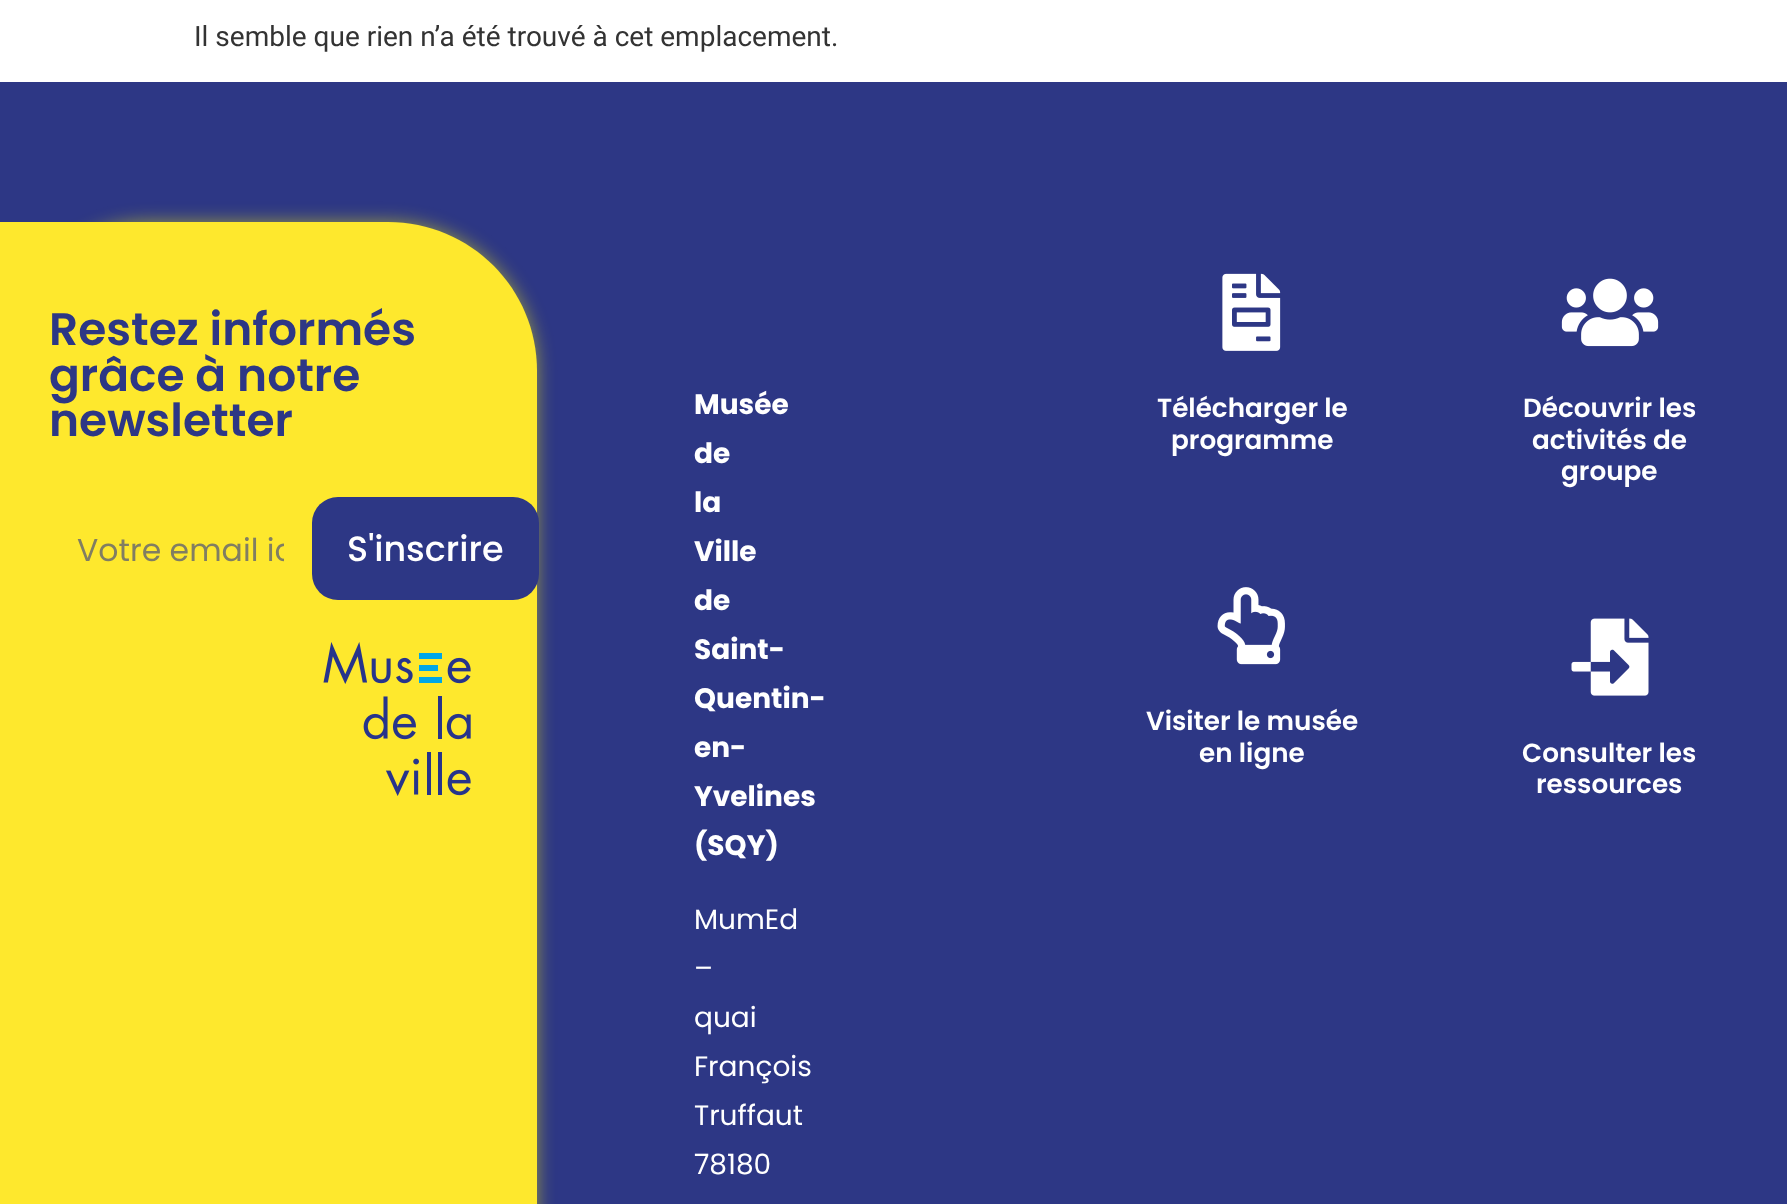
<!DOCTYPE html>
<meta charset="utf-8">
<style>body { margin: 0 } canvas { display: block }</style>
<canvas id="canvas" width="1787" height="1204"></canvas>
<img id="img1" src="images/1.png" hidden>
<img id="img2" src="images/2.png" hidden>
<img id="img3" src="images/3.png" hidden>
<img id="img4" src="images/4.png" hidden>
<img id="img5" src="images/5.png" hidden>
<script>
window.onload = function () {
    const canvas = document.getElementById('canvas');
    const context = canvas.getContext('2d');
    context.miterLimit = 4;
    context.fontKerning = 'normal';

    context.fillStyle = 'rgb(255, 255, 255)';
    context.fillRect(0, 0, 1787, 1204);
    context.fillStyle = 'rgb(45, 55, 133)';
    context.fillRect(0, 82, 1787, 1122);
    context.fillStyle = 'rgba(253, 248, 0, 0.5)';
    context.filter = 'blur(9px)';
    context.beginPath();
    context.roundRect(0, 222, 537, 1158, 149);
    context.fill();
    context.filter = 'none';
    context.fillStyle = 'rgb(254, 232, 45)';
    context.beginPath();
    context.moveTo(0, 222);
    context.lineTo(388, 222);
    context.bezierCurveTo(470.5, 222, 537, 288.5, 537, 371);
    context.lineTo(537, 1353);
    context.lineTo(149, 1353);
    context.bezierCurveTo(66.5, 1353, 0, 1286.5, 0, 1204);
    context.closePath();
    context.fill();
    context.fillStyle = 'rgb(45, 55, 133)';
    context.beginPath();
    context.roundRect(312, 497, 227, 103, 26);
    context.fill();
    context.drawImage(document.getElementById('img1'), 323, 642, 148, 154);
    context.drawImage(document.getElementById('img2'), 1222, 273, 59, 78);
    context.drawImage(document.getElementById('img3'), 1217, 587, 68, 78);
    context.drawImage(document.getElementById('img4'), 1561, 278, 98, 69);
    context.drawImage(document.getElementById('img5'), 1571, 618, 78, 78);
    context.font = '28px Roboto';
    context.fillStyle = 'rgb(51, 51, 51)';
    context.fillText('Il semble que rien n’a été trouvé à cet emplacement.', 194, 46);
    context.font = '600 45.5px Poppins';
    context.fillStyle = 'rgb(45, 55, 133)';
    context.fillText('Restez informés', 49, 345);
    context.fillText('grâce à notre', 49, 391);
    context.fillText('newsletter', 49, 436);
    context.save();
    context.beginPath();
    context.rect(77, 525, 207, 47);
    context.clip();
    context.font = '31.5px Poppins';
    context.fillStyle = 'rgb(129, 126, 98)';
    context.fillText('Votre email ic', 77, 561);
    context.restore();
    context.font = '500 35px Poppins';
    context.fillStyle = 'rgb(255, 255, 255)';
    context.fillText('S\'inscrire', 347, 561);
    context.font = 'bold 28px Poppins';
    context.fillText('Musée', 694, 414);
    context.fillText('de', 694, 463);
    context.fillText('la', 694, 512);
    context.fillText('Ville', 694, 561);
    context.fillText('de', 694, 610);
    context.fillText('Saint-', 694, 659);
    context.fillText('Quentin-', 694, 708);
    context.fillText('en-', 694, 757);
    context.fillText('Yvelines', 694, 806);
    context.fillText('(SQY)', 694, 855);
    context.font = '28px Poppins';
    context.fillText('MumEd', 694, 929);
    context.fillText('–', 694, 978);
    context.fillText('quai', 694, 1027);
    context.fillText('François', 694, 1076);
    context.fillText('Truffaut', 694, 1125);
    context.fillText('78180', 694, 1174);
    context.font = '600 26.25px Poppins';
    context.fillText('Télécharger le', 1157, 417);
    context.fillText('programme', 1171, 449);
    context.fillText('Visiter le musée', 1146, 730);
    context.fillText('en ligne', 1199, 762);
    context.fillText('Découvrir les', 1523, 417);
    context.fillText('activités de', 1532, 449);
    context.fillText('groupe', 1561, 480);
    context.fillText('Consulter les', 1522, 762);
    context.fillText('ressources', 1536, 793);
};
</script>
